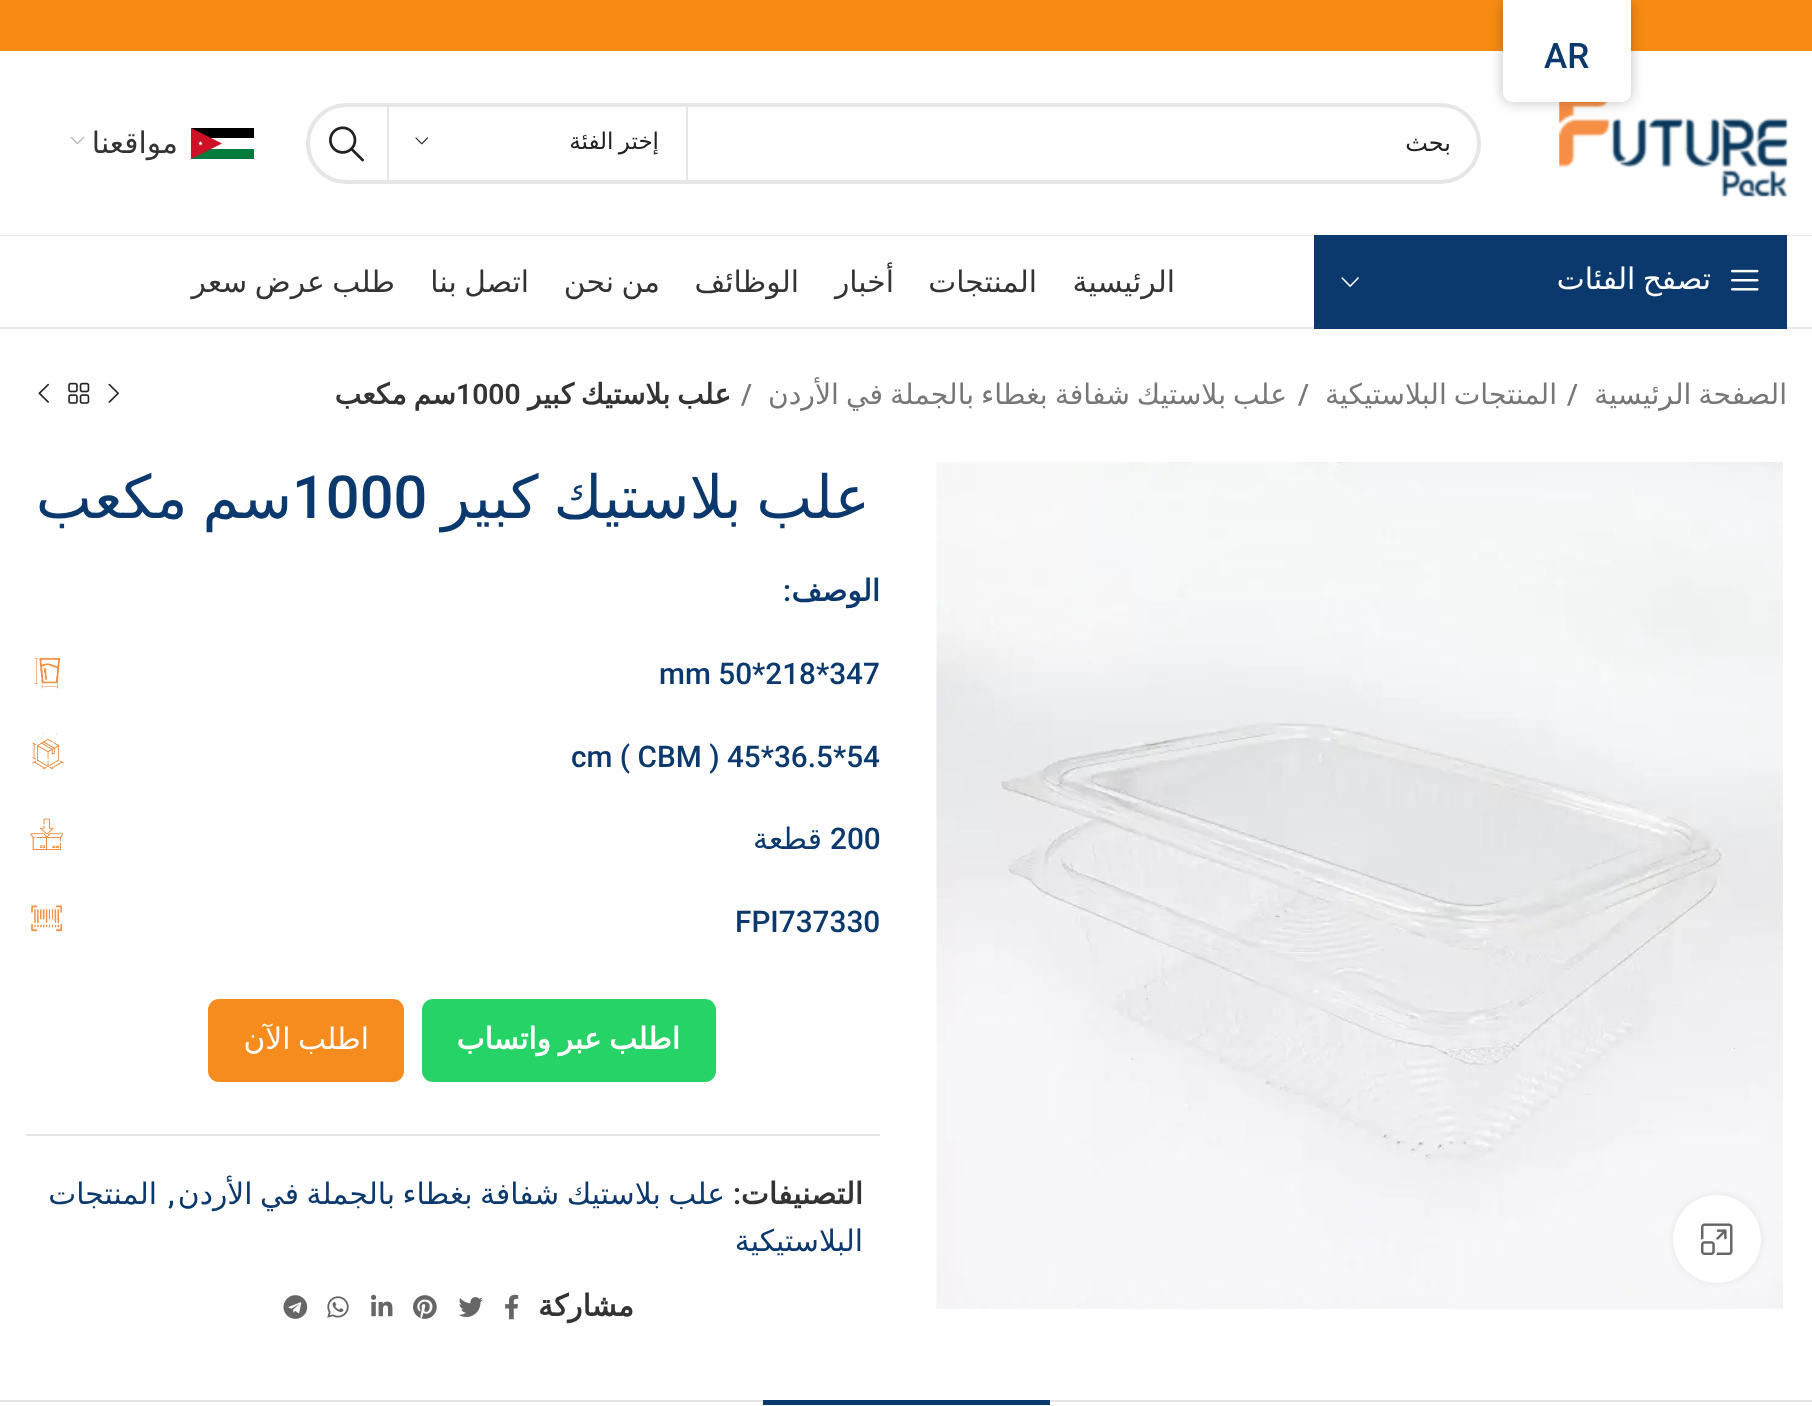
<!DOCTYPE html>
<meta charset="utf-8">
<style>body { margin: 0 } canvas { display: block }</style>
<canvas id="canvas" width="1812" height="1406"></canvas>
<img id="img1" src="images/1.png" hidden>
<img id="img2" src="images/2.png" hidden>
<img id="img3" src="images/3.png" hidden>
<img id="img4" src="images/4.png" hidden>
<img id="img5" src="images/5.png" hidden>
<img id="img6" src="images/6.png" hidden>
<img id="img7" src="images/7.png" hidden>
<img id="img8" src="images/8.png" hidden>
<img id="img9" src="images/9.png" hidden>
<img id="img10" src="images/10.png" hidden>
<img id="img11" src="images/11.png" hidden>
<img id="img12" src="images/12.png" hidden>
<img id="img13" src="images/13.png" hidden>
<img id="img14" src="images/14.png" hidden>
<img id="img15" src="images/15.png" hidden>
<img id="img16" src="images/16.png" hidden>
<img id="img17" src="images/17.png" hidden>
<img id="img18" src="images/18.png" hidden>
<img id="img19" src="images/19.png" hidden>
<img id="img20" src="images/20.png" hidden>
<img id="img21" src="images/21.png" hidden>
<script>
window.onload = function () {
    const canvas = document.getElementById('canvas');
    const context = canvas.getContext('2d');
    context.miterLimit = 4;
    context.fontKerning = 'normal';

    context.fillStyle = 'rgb(255, 255, 255)';
    context.fillRect(0, 0, 1812, 1406);
    context.fillStyle = 'rgb(248, 139, 19)';
    context.fillRect(0, 0, 1812, 51);
    context.drawImage(document.getElementById('img1'), 1559, 102, 229, 95);
    context.fillStyle = 'rgba(0, 0, 0, 0.25)';
    context.filter = 'blur(7px)';
    context.beginPath();
    context.roundRect(1503, 0, 128, 102, 9);
    context.fill();
    context.filter = 'none';
    context.fillStyle = 'rgb(255, 255, 255)';
    context.beginPath();
    context.roundRect(1503, 0, 128, 102, [0, 0, 9, 9]);
    context.fill();
    context.fillStyle = 'rgb(232, 232, 232)';
    context.fillRect(0, 235, 1812, 1);
    context.beginPath();
    context.roundRect(308, 105, 1171, 77, 38.5);
    context.strokeStyle = 'rgb(230, 230, 230)';
    context.lineWidth = 4;
    context.stroke();
    context.fillStyle = 'rgb(230, 230, 230)';
    context.fillRect(686, 107, 2, 73);
    context.fillRect(387, 107, 2, 73);
    context.drawImage(document.getElementById('img2'), 415, 137, 14, 8);
    context.drawImage(document.getElementById('img3'), 329, 126, 35, 36);
    context.fillStyle = 'rgb(0, 0, 0)';
    context.fillRect(191, 128, 63, 10);
    context.fillStyle = 'rgb(0, 122, 61)';
    context.fillRect(191, 149, 63, 10);
    context.fillStyle = 'rgb(206, 17, 38)';
    context.beginPath();
    context.moveTo(222, 143.5);
    context.lineTo(191, 159);
    context.lineTo(191, 128);
    context.moveTo(200.5, 141);
    context.lineTo(200, 142.5);
    context.lineTo(198.5, 142);
    context.lineTo(199.5, 143);
    context.lineTo(198.5, 144);
    context.lineTo(199.5, 144);
    context.lineTo(199.5, 145.5);
    context.lineTo(200.5, 144.5);
    context.lineTo(201.5, 145.5);
    context.lineTo(201.5, 144);
    context.lineTo(202.5, 144);
    context.lineTo(201.5, 143);
    context.lineTo(202, 142);
    context.lineTo(201, 142.5);
    context.closePath();
    context.fill();
    context.drawImage(document.getElementById('img4'), 70, 136, 15, 9);
    context.fillStyle = 'rgb(232, 232, 232)';
    context.fillRect(0, 327, 1812, 2);
    context.fillStyle = 'rgb(11, 57, 109)';
    context.fillRect(1314, 235, 473, 94);
    context.drawImage(document.getElementById('img5'), 1731, 269, 28, 22);
    context.drawImage(document.getElementById('img6'), 1341, 277, 18, 10);
    context.drawImage(document.getElementById('img7'), 108, 383, 11, 20);
    context.drawImage(document.getElementById('img8'), 68, 382, 22, 22);
    context.drawImage(document.getElementById('img9'), 38, 383, 11, 20);
    context.drawImage(document.getElementById('img10'), 936, 462, 847, 847);
    context.fillStyle = 'rgba(0, 0, 0, 0.08)';
    context.filter = 'blur(4.5px)';
    context.beginPath();
    context.roundRect(1673, 1195, 88, 88, 44);
    context.fill();
    context.filter = 'none';
    context.fillStyle = 'rgb(255, 255, 255)';
    context.beginPath();
    context.arc(1717, 1239, 44, 0, 2 * Math.PI);
    context.fill();
    context.drawImage(document.getElementById('img11'), 1701, 1223, 32, 32);
    context.drawImage(document.getElementById('img12'), 34, 658, 27, 31);
    context.drawImage(document.getElementById('img13'), 32, 733, 32, 37);
    context.drawImage(document.getElementById('img14'), 30, 818, 34, 32);
    context.drawImage(document.getElementById('img15'), 31, 905, 31, 27);
    context.fillStyle = 'rgb(37, 211, 102)';
    context.beginPath();
    context.roundRect(422, 999, 294, 83, 11);
    context.fill();
    context.fillStyle = 'rgb(246, 139, 30)';
    context.beginPath();
    context.roundRect(208, 999, 196, 83, 11);
    context.fill();
    context.fillStyle = 'rgb(228, 228, 228)';
    context.fillRect(26, 1134, 854, 2);
    context.drawImage(document.getElementById('img16'), 505, 1294, 14, 26);
    context.drawImage(document.getElementById('img17'), 458, 1297, 25, 20);
    context.drawImage(document.getElementById('img18'), 413, 1295, 24, 24);
    context.drawImage(document.getElementById('img19'), 371, 1294, 22, 23);
    context.drawImage(document.getElementById('img20'), 327, 1296, 22, 22);
    context.drawImage(document.getElementById('img21'), 283, 1295, 25, 24);
    context.fillRect(0, 1400, 1812, 2);
    context.fillStyle = 'rgb(11, 57, 109)';
    context.fillRect(763, 1400, 287, 5);
    context.font = '500 35px Roboto';
    context.fillText('AR', 1544, 68);
    context.direction = 'rtl';
    context.font = '24px DejaVu Sans';
    context.fillStyle = 'rgb(33, 33, 33)';
    context.fillText('بحث', 1451, 151);
    context.wordSpacing = '-2px';
    context.font = '23px DejaVu Sans';
    context.fillText('إختر الفئة', 659, 149);
    context.wordSpacing = '0px';
    context.font = '29.75px DejaVu Sans';
    context.fillStyle = 'rgb(51, 51, 51)';
    context.fillText('مواقعنا', 178, 153);
    context.wordSpacing = '-2px';
    context.fillStyle = 'rgb(255, 255, 255)';
    context.fillText('تصفح الفئات', 1711, 289);
    context.wordSpacing = '0px';
    context.fillStyle = 'rgb(51, 51, 51)';
    context.fillText('الرئيسية', 1175, 292);
    context.fillText('المنتجات', 1037, 292);
    context.fillText('أخبار', 894, 292);
    context.fillText('الوظائف', 799, 292);
    context.wordSpacing = '-2px';
    context.fillText('من نحن', 660, 292);
    context.fillText('اتصل بنا', 529, 292);
    context.fillText('طلب عرض سعر', 395, 292);
    context.font = '28.25px DejaVu Sans';
    context.fillStyle = 'rgb(119, 119, 119)';
    context.fillText('الصفحة الرئيسية', 1787, 404);
    context.wordSpacing = '0px';
    context.direction = 'ltr';
    context.font = '500 28.25px Roboto';
    context.fillText('/', 1567, 404);
    context.wordSpacing = '-2px';
    context.direction = 'rtl';
    context.font = '28.25px DejaVu Sans';
    context.fillText('المنتجات البلاستيكية', 1557, 404);
    context.wordSpacing = '0px';
    context.direction = 'ltr';
    context.font = '500 28.25px Roboto';
    context.fillText('/', 1298, 404);
    context.wordSpacing = '-2px';
    context.direction = 'rtl';
    context.font = '28.25px DejaVu Sans';
    context.fillText('علب بلاستيك شفافة بغطاء بالجملة في الأردن', 1287, 404);
    context.wordSpacing = '0px';
    context.direction = 'ltr';
    context.font = '500 28.25px Roboto';
    context.fillText('/', 741, 404);
    context.wordSpacing = '-2px';
    context.direction = 'rtl';
    context.font = 'bold 28.25px DejaVu Sans';
    context.fillStyle = 'rgb(51, 51, 51)';
    context.fillText('علب بلاستيك كبير', 731, 404);
    context.wordSpacing = '0px';
    context.direction = 'ltr';
    context.font = '600 28.25px Roboto';
    context.fillText('1000', 456, 404);
    context.wordSpacing = '-2px';
    context.direction = 'rtl';
    context.font = 'bold 28.25px DejaVu Sans';
    context.fillText('سم مكعب', 456, 404);
    context.wordSpacing = '-4px';
    context.font = '59.5px DejaVu Sans';
    context.fillStyle = 'rgb(11, 57, 109)';
    context.fillText('علب بلاستيك كبير', 870, 518);
    context.wordSpacing = '0px';
    context.direction = 'ltr';
    context.font = '500 59.5px Roboto';
    context.fillText('1000', 292, 518);
    context.wordSpacing = '-4px';
    context.direction = 'rtl';
    context.font = '59.5px DejaVu Sans';
    context.fillText('سم مكعب', 292, 518);
    context.wordSpacing = '0px';
    context.font = 'bold 29.75px DejaVu Sans';
    context.fillText('الوصف', 880, 601);
    context.font = '600 29.75px Roboto';
    context.fillText(':', 791, 601);
    context.direction = 'ltr';
    context.font = '500 29.75px Roboto';
    context.fillText('mm 50*218*347', 659, 684);
    context.fillText('cm ( CBM ) 45*36.5*54', 571, 767);
    context.fillText('200', 830, 849);
    context.direction = 'rtl';
    context.font = '29.75px DejaVu Sans';
    context.fillText('قطعة', 822, 849);
    context.direction = 'ltr';
    context.font = '500 29.75px Roboto';
    context.fillText('FPI737330', 735, 932);
    context.wordSpacing = '-2px';
    context.direction = 'rtl';
    context.font = 'bold 29.75px DejaVu Sans';
    context.fillStyle = 'rgb(255, 255, 255)';
    context.fillText('اطلب عبر واتساب', 680, 1049);
    context.font = '29.75px DejaVu Sans';
    context.fillText('اطلب الآن', 369, 1049);
    context.wordSpacing = '0px';
    context.font = 'bold 29.75px DejaVu Sans';
    context.fillStyle = 'rgb(51, 51, 51)';
    context.fillText('التصنيفات', 863, 1204);
    context.font = '600 29.75px Roboto';
    context.fillText(':', 741, 1204);
    context.wordSpacing = '-2px';
    context.font = '29.75px DejaVu Sans';
    context.fillStyle = 'rgb(11, 57, 109)';
    context.fillText('علب بلاستيك شفافة بغطاء بالجملة في الأردن', 725, 1204);
    context.wordSpacing = '0px';
    context.direction = 'ltr';
    context.font = '500 29.75px Roboto';
    context.fillText(',', 168, 1204);
    context.direction = 'rtl';
    context.font = '29.75px DejaVu Sans';
    context.fillText('المنتجات', 157, 1204);
    context.fillText('البلاستيكية', 863, 1251);
    context.font = 'bold 29.75px DejaVu Sans';
    context.fillStyle = 'rgb(51, 51, 51)';
    context.fillText('مشاركة', 634, 1316);
};
</script>
